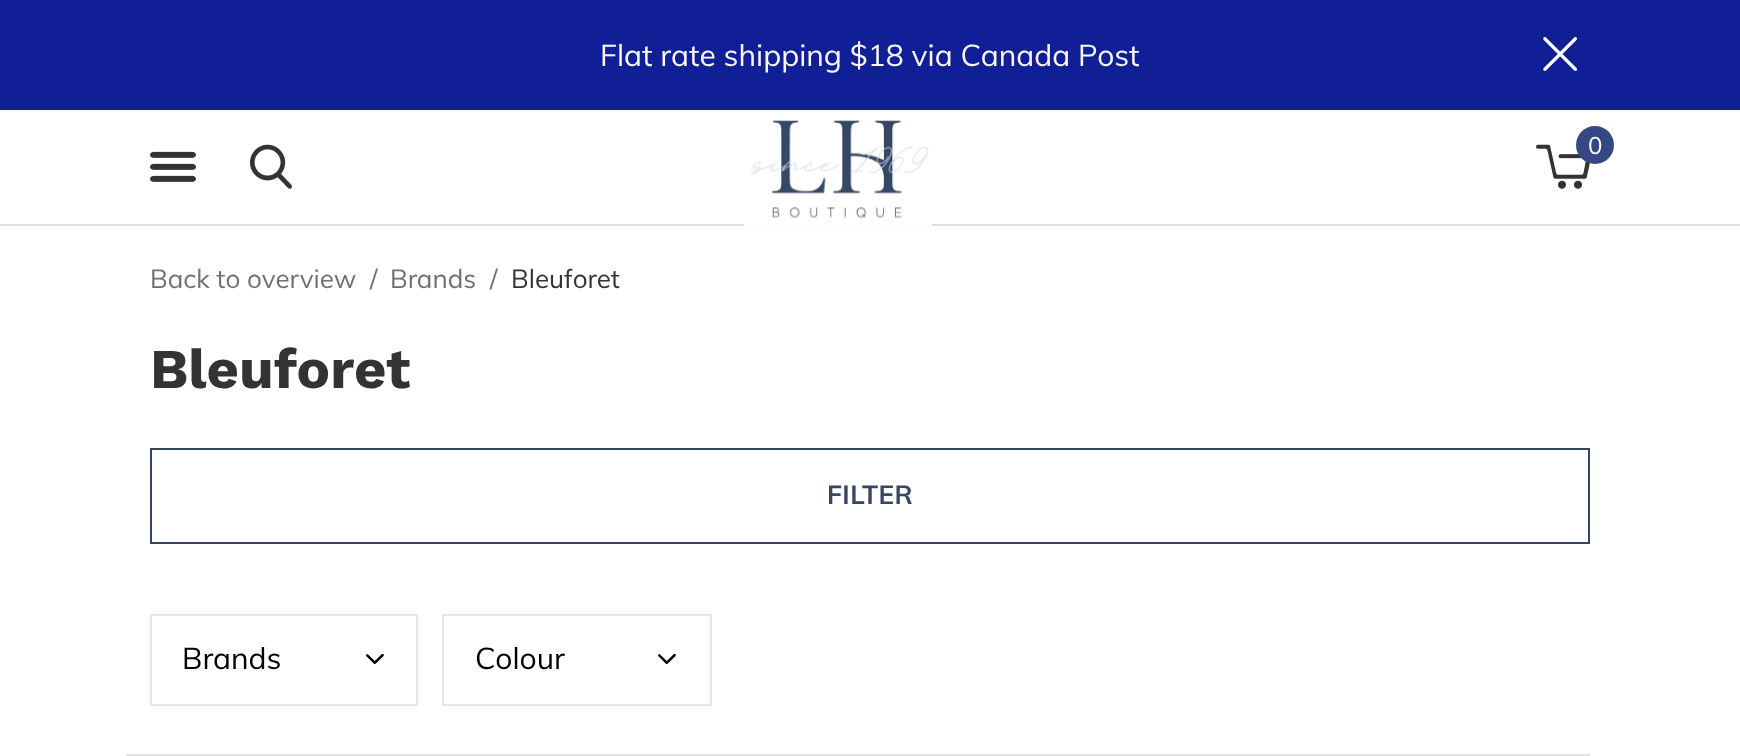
<!DOCTYPE html>
<meta charset="utf-8">
<style>body { margin: 0 } canvas { display: block }</style>
<canvas id="canvas" width="1740" height="756"></canvas>
<img id="img1" src="images/1.png" hidden>
<img id="img2" src="images/2.png" hidden>
<img id="img3" src="images/3.png" hidden>
<img id="img4" src="images/4.png" hidden>
<img id="img5" src="images/5.png" hidden>
<img id="img6" src="images/6.png" hidden>
<script>
window.onload = function () {
    const canvas = document.getElementById('canvas');
    const context = canvas.getContext('2d');
    context.miterLimit = 4;
    context.fontKerning = 'normal';

    context.fillStyle = 'rgb(255, 255, 255)';
    context.fillRect(0, 0, 1740, 756);
    context.fillStyle = 'rgb(17, 31, 150)';
    context.fillRect(0, 0, 1740, 110);
    context.drawImage(document.getElementById('img1'), 1543, 37, 34, 34);
    context.fillStyle = 'rgb(223, 223, 223)';
    context.fillRect(0, 224, 1740, 2);
    context.drawImage(document.getElementById('img2'), 744, 120, 188, 106);
    context.drawImage(document.getElementById('img3'), 250, 144, 42, 45);
    context.drawImage(document.getElementById('img4'), 1536, 144, 54, 45);
    context.fillStyle = 'rgb(54, 71, 133)';
    context.beginPath();
    context.arc(1595, 145, 19, 0, 2 * Math.PI);
    context.fill();
    context.drawImage(document.getElementById('img5'), 150, 151, 46, 31);
    context.strokeStyle = 'rgb(54, 71, 101)';
    context.lineWidth = 2;
    context.strokeRect(151, 449, 1438, 94);
    context.drawImage(document.getElementById('img6'), 366, 654, 18, 10);
    context.strokeStyle = 'rgb(229, 229, 229)';
    context.strokeRect(151, 615, 266, 90);
    context.drawImage(document.getElementById('img6'), 658, 654, 18, 10);
    context.strokeRect(443, 615, 268, 90);
    context.fillStyle = 'rgb(229, 229, 229)';
    context.fillRect(126, 754, 1464, 2);
    context.font = '30px Muli';
    context.fillStyle = 'rgb(250, 247, 247)';
    context.fillText('Flat rate shipping $18 via Canada Post', 600, 66);
    context.font = '24px Muli';
    context.fillStyle = 'rgb(255, 255, 255)';
    context.fillText('0', 1588, 154);
    context.font = '26px Muli';
    context.fillStyle = 'rgb(112, 112, 112)';
    context.fillText('Back to overview', 150, 288);
    context.fillText('/', 370, 288);
    context.fillText('Brands', 390, 288);
    context.fillText('/', 490, 288);
    context.fillStyle = 'rgb(51, 51, 51)';
    context.fillText('Bleuforet', 511, 288);
    context.font = 'bold 56px Work Sans';
    context.fillText('Bleuforet', 150, 388);
    context.letterSpacing = '0.5px';
    context.font = 'bold 26px Muli';
    context.fillStyle = 'rgb(54, 71, 101)';
    context.fillText('FILTER', 827, 504);
    context.letterSpacing = '0px';
    context.font = '30px Muli';
    context.fillStyle = 'rgb(0, 0, 0)';
    context.fillText('Brands', 182, 669);
    context.fillText('Colour', 475, 669);
};
</script>
